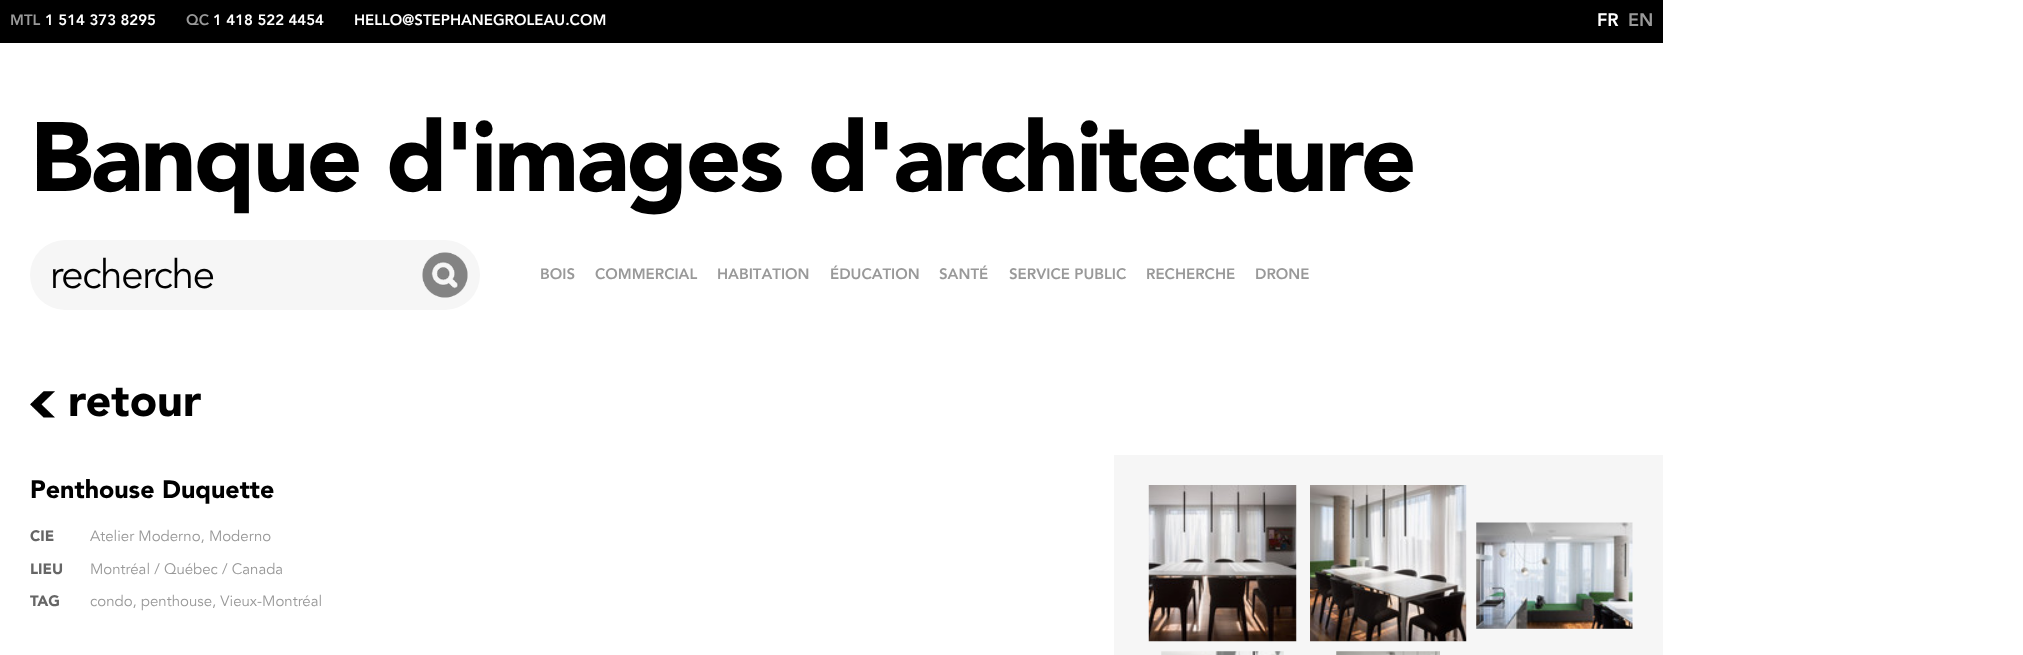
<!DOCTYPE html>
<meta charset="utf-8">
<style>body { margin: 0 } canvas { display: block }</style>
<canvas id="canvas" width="2023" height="655"></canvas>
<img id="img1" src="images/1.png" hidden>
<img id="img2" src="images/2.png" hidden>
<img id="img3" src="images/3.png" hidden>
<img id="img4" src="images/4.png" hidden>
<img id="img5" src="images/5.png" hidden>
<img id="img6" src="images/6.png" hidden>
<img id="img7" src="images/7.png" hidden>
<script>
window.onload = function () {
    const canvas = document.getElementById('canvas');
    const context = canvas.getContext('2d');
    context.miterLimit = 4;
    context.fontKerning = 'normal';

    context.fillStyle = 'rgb(255, 255, 255)';
    context.fillRect(0, 0, 2023, 655);
    context.fillStyle = 'rgb(0, 0, 0)';
    context.fillRect(0, 0, 1663, 43);
    context.fillStyle = 'rgb(246, 246, 246)';
    context.beginPath();
    context.roundRect(30, 240, 450, 70, 35);
    context.fill();
    context.drawImage(document.getElementById('img1'), 422, 252, 46, 46);
    context.drawImage(document.getElementById('img2'), 30, 391, 25, 27);
    context.fillRect(1114, 455, 549, 200);
    context.drawImage(document.getElementById('img3'), 1148, 485, 149, 157);
    context.drawImage(document.getElementById('img4'), 1310, 485, 157, 157);
    context.drawImage(document.getElementById('img5'), 1476, 522, 157, 107);
    context.drawImage(document.getElementById('img6'), 1161, 651, 123, 4);
    context.drawImage(document.getElementById('img7'), 1336, 651, 104, 4);
    context.font = '900 15px Avenir';
    context.fillStyle = 'rgb(153, 153, 153)';
    context.fillText('MTL', 10, 25);
    context.fillStyle = 'rgb(255, 255, 255)';
    context.fillText('1 514 373 8295', 45, 25);
    context.fillStyle = 'rgb(153, 153, 153)';
    context.fillText('QC', 186, 25);
    context.fillStyle = 'rgb(255, 255, 255)';
    context.fillText('1 418 522 4454', 213, 25);
    context.fillText('HELLO@STEPHANEGROLEAU.COM', 354, 25);
    context.font = '900 18px Avenir';
    context.fillText('FR', 1597, 26);
    context.fillStyle = 'rgb(153, 153, 153)';
    context.fillText('EN', 1628, 26);
    context.letterSpacing = '-2.5px';
    context.font = '900 97.5px "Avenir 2"';
    context.fillStyle = 'rgb(0, 0, 0)';
    context.fillText('Banque d\'images d\'architecture', 30, 191);
    context.letterSpacing = '-1.25px';
    context.font = '40px Avenir';
    context.fillText('recherche', 50, 288);
    context.letterSpacing = '0px';
    context.font = '900 15px Avenir';
    context.fillStyle = 'rgb(153, 153, 153)';
    context.fillText('BOIS', 540, 279);
    context.fillText('COMMERCIAL', 595, 279);
    context.fillText('HABITATION', 717, 279);
    context.fillText('ÉDUCATION', 830, 279);
    context.fillText('SANTÉ', 939, 279);
    context.fillText('SERVICE PUBLIC', 1009, 279);
    context.fillText('RECHERCHE', 1146, 279);
    context.fillText('DRONE', 1255, 279);
    context.font = '900 45px "Avenir 2"';
    context.fillStyle = 'rgb(0, 0, 0)';
    context.fillText('retour', 68, 416);
    context.font = '900 25px "Avenir 2"';
    context.fillText('Penthouse Duquette', 30, 498);
    context.font = '900 15px "Avenir 2"';
    context.fillStyle = 'rgb(102, 102, 102)';
    context.fillText('CIE', 30, 541);
    context.font = '15px Avenir';
    context.fillStyle = 'rgb(153, 153, 153)';
    context.fillText('Atelier Moderno, Moderno', 90, 541);
    context.font = '900 15px "Avenir 2"';
    context.fillStyle = 'rgb(102, 102, 102)';
    context.fillText('LIEU', 30, 574);
    context.font = '15px Avenir';
    context.fillStyle = 'rgb(153, 153, 153)';
    context.fillText('Montréal / Québec / Canada', 90, 574);
    context.font = '900 15px "Avenir 2"';
    context.fillStyle = 'rgb(102, 102, 102)';
    context.fillText('TAG', 30, 606);
    context.font = '15px Avenir';
    context.fillStyle = 'rgb(153, 153, 153)';
    context.fillText('condo, penthouse, Vieux-Montréal', 90, 606);
};
</script>
